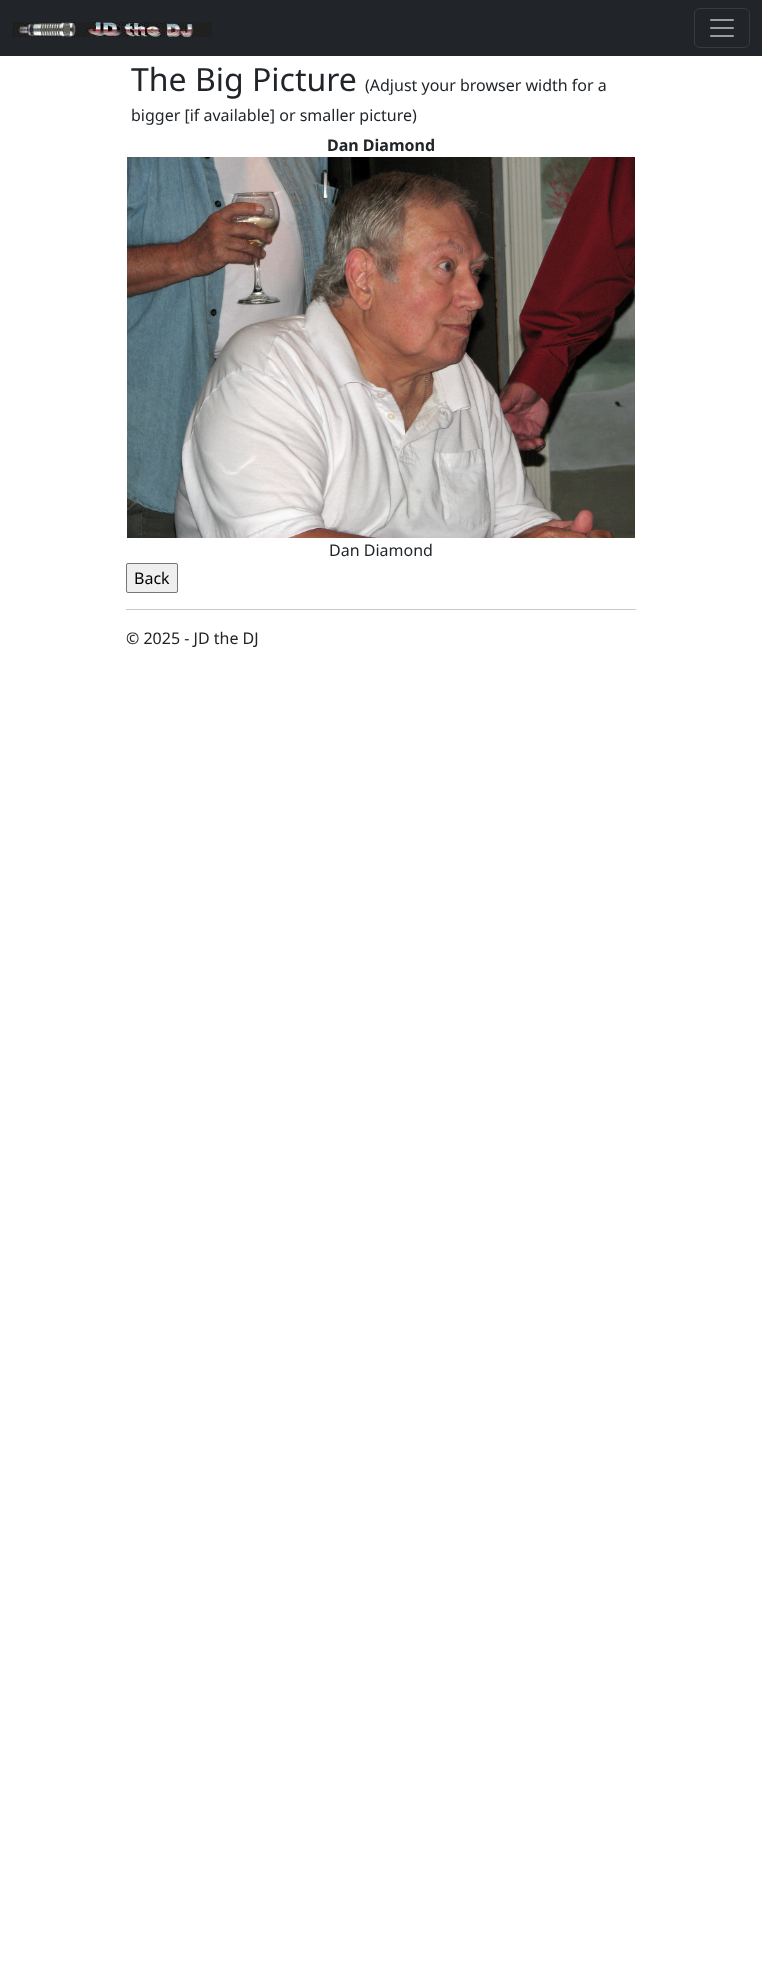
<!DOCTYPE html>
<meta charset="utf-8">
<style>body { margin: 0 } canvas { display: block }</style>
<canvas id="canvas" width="762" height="1961"></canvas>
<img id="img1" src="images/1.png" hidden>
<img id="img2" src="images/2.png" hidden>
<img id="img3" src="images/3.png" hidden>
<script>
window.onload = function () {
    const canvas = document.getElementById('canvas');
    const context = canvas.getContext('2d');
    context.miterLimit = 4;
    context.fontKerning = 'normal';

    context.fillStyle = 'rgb(255, 255, 255)';
    context.fillRect(0, 0, 762, 1961);
    context.fillStyle = 'rgb(33, 37, 41)';
    context.fillRect(0, 0, 762, 56);
    context.drawImage(document.getElementById('img1'), 12, 22, 200, 15);
    context.beginPath();
    context.roundRect(694.5, 8.5, 55, 39, 5.5);
    context.strokeStyle = 'rgb(55, 59, 62)';
    context.stroke();
    context.drawImage(document.getElementById('img2'), 710, 19, 24, 18);
    context.drawImage(document.getElementById('img3'), 127, 157, 508, 381);
    context.fillStyle = 'rgb(239, 239, 239)';
    context.beginPath();
    context.roundRect(126.5, 563.5, 51, 29, 1.5);
    context.fill();
    context.strokeStyle = 'rgb(118, 118, 118)';
    context.stroke();
    context.fillStyle = 'rgb(200, 201, 202)';
    context.fillRect(126, 609, 510, 1);
    context.font = '32px Noto Sans';
    context.fillStyle = 'rgb(33, 37, 41)';
    context.fillText('The Big Picture', 131, 91);
    context.font = '16px Noto Sans';
    context.fillText('(Adjust your browser width for a', 365, 91);
    context.fillText('bigger [if available] or smaller picture)', 131, 121);
    context.font = 'bold 16px Noto Sans';
    context.fillText('Dan Diamond', 327, 151);
    context.font = '16px Noto Sans';
    context.fillText('Dan Diamond', 329, 556);
    context.fillStyle = 'rgb(0, 0, 0)';
    context.fillText('Back', 134, 584);
    context.fillStyle = 'rgb(33, 37, 41)';
    context.fillText('© 2025 - JD the DJ', 126, 644);
};
</script>
